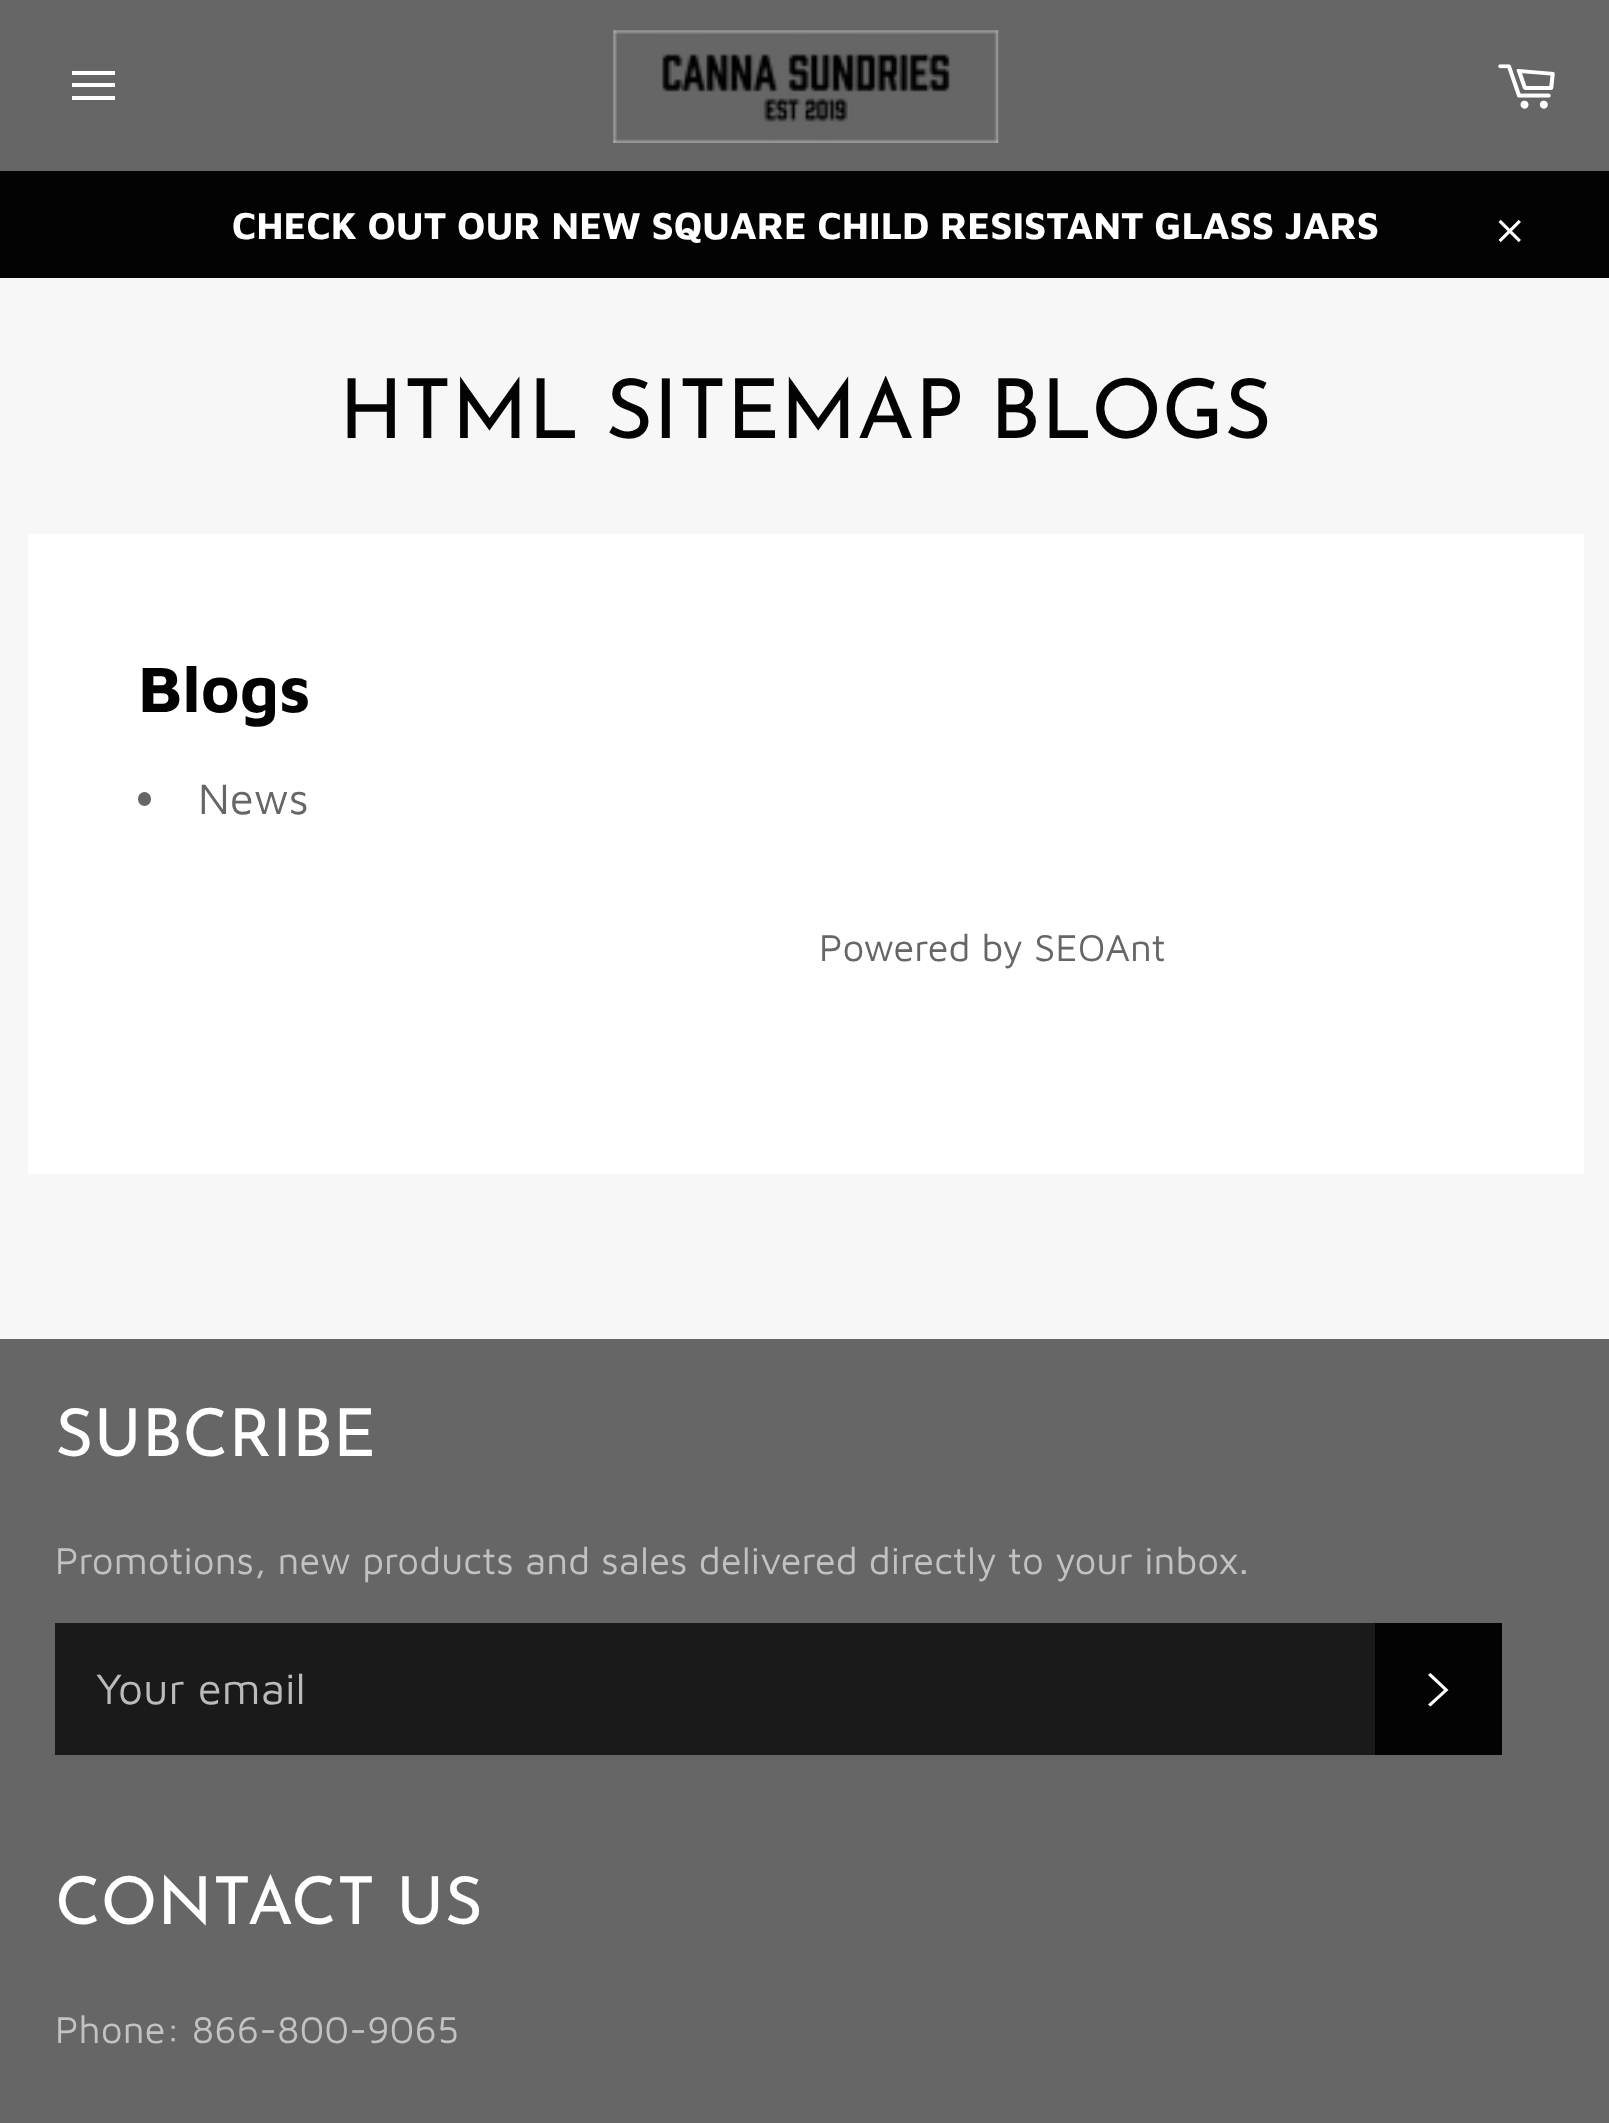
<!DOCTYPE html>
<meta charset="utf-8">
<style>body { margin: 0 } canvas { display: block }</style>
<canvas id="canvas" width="1609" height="2123"></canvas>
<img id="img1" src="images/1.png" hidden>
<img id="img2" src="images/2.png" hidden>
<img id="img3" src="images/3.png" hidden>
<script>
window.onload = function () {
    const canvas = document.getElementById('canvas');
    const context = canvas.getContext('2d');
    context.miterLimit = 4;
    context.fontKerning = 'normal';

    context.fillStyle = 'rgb(247, 247, 247)';
    context.fillRect(0, 0, 1609, 2123);
    context.fillStyle = 'rgb(102, 102, 102)';
    context.fillRect(0, 0, 1609, 171);
    context.fillStyle = 'rgb(255, 255, 255)';
    context.beginPath();
    context.moveTo(72, 83);
    context.lineTo(115, 83);
    context.lineTo(115, 87);
    context.lineTo(72, 87);
    context.closePath();
    context.moveTo(72, 71);
    context.lineTo(115, 71);
    context.lineTo(115, 75);
    context.lineTo(72, 75);
    context.closePath();
    context.moveTo(72, 96);
    context.lineTo(115, 96);
    context.lineTo(115, 100);
    context.lineTo(72, 100);
    context.closePath();
    context.fill();
    context.drawImage(document.getElementById('img1'), 613, 30, 386, 113);
    context.drawImage(document.getElementById('img2'), 1498, 64, 57, 45);
    context.fillStyle = 'rgb(3, 3, 3)';
    context.fillRect(0, 171, 1609, 107);
    context.drawImage(document.getElementById('img3'), 1498, 219, 23, 24);
    context.fillStyle = 'rgb(255, 255, 255)';
    context.fillRect(28, 534, 1556, 640);
    context.fillStyle = 'rgb(102, 102, 102)';
    context.beginPath();
    context.roundRect(138, 792, 13, 14, 6.5);
    context.fill();
    context.fillRect(0, 1339, 1609, 784);
    context.fillStyle = 'rgb(26, 26, 26)';
    context.fillRect(55, 1623, 1320, 132);
    context.fillStyle = 'rgb(3, 3, 3)';
    context.fillRect(1375, 1623, 127, 132);
    context.fillStyle = 'rgb(255, 255, 255)';
    context.beginPath();
    context.moveTo(1428, 1675);
    context.lineTo(1430.5, 1673);
    context.lineTo(1448.5, 1690);
    context.lineTo(1430.5, 1706.5);
    context.lineTo(1428, 1704.5);
    context.lineTo(1444, 1690);
    context.closePath();
    context.fill();
    context.font = 'bold 38.5px Maven Pro';
    context.fillText('CHECK OUT OUR NEW SQUARE CHILD RESISTANT GLASS JARS', 232, 239);
    context.font = '82.5px Josefin Sans';
    context.fillStyle = 'rgb(3, 3, 3)';
    context.fillText('HTML SITEMAP BLOGS', 339, 438);
    context.font = 'bold 66px Maven Pro';
    context.fillText('Blogs', 138, 712);
    context.font = '44px Maven Pro';
    context.fillStyle = 'rgb(102, 102, 102)';
    context.fillText('News', 198, 814);
    context.font = '38.5px Maven Pro';
    context.fillText('Powered by SEOAnt', 819, 961);
    context.font = '66px Josefin Sans';
    context.fillStyle = 'rgb(255, 255, 255)';
    context.fillText('SUBCRIBE', 55, 1456);
    context.font = '38.5px Maven Pro';
    context.fillStyle = 'rgb(194, 194, 194)';
    context.fillText('Promotions, new products and sales delivered directly to your inbox.', 55, 1574);
    context.font = '44px Maven Pro';
    context.fillStyle = 'rgb(186, 186, 186)';
    context.fillText('Your email', 96, 1704);
    context.font = '66px Josefin Sans';
    context.fillStyle = 'rgb(255, 255, 255)';
    context.fillText('CONTACT US', 55, 1924);
    context.font = '38.5px Maven Pro';
    context.fillStyle = 'rgb(194, 194, 194)';
    context.fillText('Phone: 866-800-9065', 55, 2043);
};
</script>
